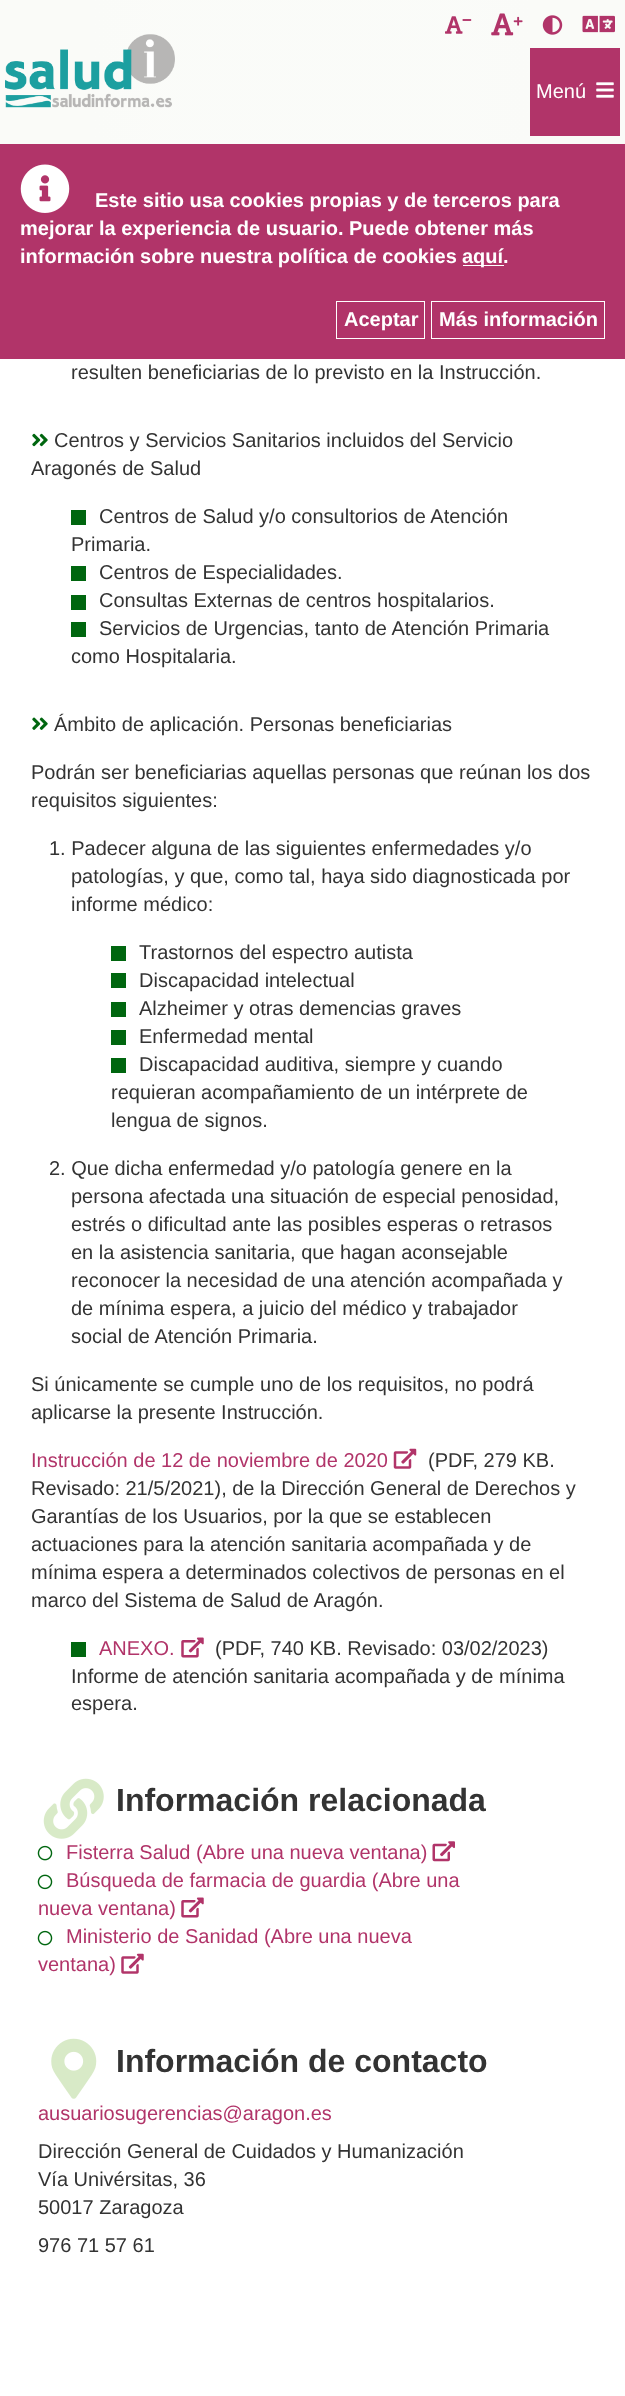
<!DOCTYPE html>
<meta charset="utf-8">
<style>body { margin: 0 } canvas { display: block }</style>
<canvas id="canvas" width="625" height="2396"></canvas>
<img id="img1" src="images/1.png" hidden>
<img id="img2" src="images/2.png" hidden>
<img id="img3" src="images/3.png" hidden>
<img id="img4" src="images/4.png" hidden>
<img id="img5" src="images/5.png" hidden>
<img id="img6" src="images/6.png" hidden>
<img id="img7" src="images/7.png" hidden>
<img id="img8" src="images/8.png" hidden>
<img id="img9" src="images/9.png" hidden>
<img id="img10" src="images/10.png" hidden>
<img id="img11" src="images/11.png" hidden>
<img id="img12" src="images/12.png" hidden>
<img id="img13" src="images/13.png" hidden>
<img id="img14" src="images/14.png" hidden>
<img id="img15" src="images/15.png" hidden>
<img id="img16" src="images/16.png" hidden>
<img id="img17" src="images/17.png" hidden>
<img id="img18" src="images/18.png" hidden>
<img id="img19" src="images/19.png" hidden>
<script>
window.onload = function () {
    const canvas = document.getElementById('canvas');
    const context = canvas.getContext('2d');
    context.miterLimit = 4;
    context.fontKerning = 'normal';
    let gradient;

    context.fillStyle = 'rgb(255, 255, 255)';
    context.fillRect(0, 0, 625, 2396);
    gradient = context.createLinearGradient(0, 179, 625, 179);
    gradient.addColorStop(0, 'rgb(250, 251, 248)');
    gradient.addColorStop(0.15, 'rgb(250, 251, 248)');
    gradient.addColorStop(0.25, 'rgba(250, 251, 248, 0.9)');
    gradient.addColorStop(0.75, 'rgba(250, 251, 248, 0.9)');
    gradient.addColorStop(0.85, 'rgb(250, 251, 248)');
    context.fillStyle = gradient;
    context.fillRect(0, 0, 625, 144);
    context.drawImage(document.getElementById('img1'), 445, 16, 18, 18);
    context.drawImage(document.getElementById('img2'), 462, 19, 10, 2);
    context.drawImage(document.getElementById('img3'), 491, 13, 23, 23);
    context.drawImage(document.getElementById('img4'), 513, 16, 10, 10);
    context.drawImage(document.getElementById('img5'), 542, 15, 21, 20);
    context.drawImage(document.getElementById('img6'), 582, 15, 33, 18);
    context.drawImage(document.getElementById('img7'), 5, 34, 170, 74);
    context.fillStyle = 'rgb(177, 52, 105)';
    context.fillRect(530, 48, 90, 88);
    context.drawImage(document.getElementById('img8'), 596, 82, 18, 16);
    context.fillRect(0, 144, 625, 215);
    context.drawImage(document.getElementById('img9'), 20, 164, 50, 49);
    context.fillStyle = 'rgb(255, 255, 255)';
    context.fillRect(463, 265, 41, 1);
    context.strokeStyle = 'rgb(255, 255, 255)';
    context.strokeRect(336.5, 301.5, 88, 37);
    context.strokeRect(431.5, 301.5, 173, 37);
    context.drawImage(document.getElementById('img10'), 32, 433, 16, 14);
    context.fillStyle = 'rgb(0, 102, 15)';
    context.fillRect(71, 510, 15, 15);
    context.fillRect(71, 566, 15, 15);
    context.fillRect(71, 595, 15, 15);
    context.fillRect(71, 622, 15, 15);
    context.drawImage(document.getElementById('img11'), 32, 717, 16, 13);
    context.fillRect(111, 946, 15, 15);
    context.fillRect(111, 973, 15, 15);
    context.fillRect(111, 1002, 15, 15);
    context.fillRect(111, 1030, 15, 15);
    context.fillRect(111, 1058, 15, 15);
    context.drawImage(document.getElementById('img12'), 393, 1448, 24, 21);
    context.fillRect(71, 1642, 15, 15);
    context.drawImage(document.getElementById('img13'), 181, 1637, 23, 21);
    context.drawImage(document.getElementById('img14'), 43, 1778, 61, 61);
    context.drawImage(document.getElementById('img15'), 37, 1845, 16, 16);
    context.drawImage(document.getElementById('img16'), 432, 1841, 23, 21);
    context.drawImage(document.getElementById('img17'), 37, 1874, 16, 16);
    context.drawImage(document.getElementById('img13'), 181, 1897, 23, 21);
    context.drawImage(document.getElementById('img15'), 37, 1930, 16, 16);
    context.drawImage(document.getElementById('img18'), 121, 1953, 23, 21);
    context.drawImage(document.getElementById('img19'), 51, 2038, 46, 61);
    context.font = '20px Liberation Sans';
    context.fillStyle = 'rgb(255, 255, 255)';
    context.fillText('Menú', 536, 98);
    context.font = 'bold 20px Liberation Sans';
    context.fillText('Este sitio usa cookies propias y de terceros para', 95, 207);
    context.fillText('mejorar la experiencia de usuario. Puede obtener más', 20, 235);
    context.fillText('información sobre nuestra política de cookies', 20, 263);
    context.fillText('aquí.', 462, 263);
    context.fillText('Aceptar', 344, 326);
    context.fillText('Más información', 439, 326);
    context.font = '20px Liberation Sans';
    context.fillStyle = 'rgb(51, 51, 51)';
    context.fillText('resulten beneficiarias de lo previsto en la Instrucción.', 71, 379);
    context.fillText('Centros y Servicios Sanitarios incluidos del Servicio', 54, 447);
    context.fillText('Aragonés de Salud', 31, 475);
    context.fillText('Centros de Salud y/o consultorios de Atención', 99, 523);
    context.fillText('Primaria.', 71, 551);
    context.fillText('Centros de Especialidades.', 99, 579);
    context.fillText('Consultas Externas de centros hospitalarios.', 99, 607);
    context.fillText('Servicios de Urgencias, tanto de Atención Primaria', 99, 635);
    context.fillText('como Hospitalaria.', 71, 663);
    context.fillText('Ámbito de aplicación. Personas beneficiarias', 54, 731);
    context.fillText('Podrán ser beneficiarias aquellas personas que reúnan los dos', 31, 779);
    context.fillText('requisitos siguientes:', 31, 807);
    context.fillText('1. Padecer alguna de las siguientes enfermedades y/o', 49, 855);
    context.fillText('patologías, y que, como tal, haya sido diagnosticada por', 71, 883);
    context.fillText('informe médico:', 71, 911);
    context.fillText('Trastornos del espectro autista', 139, 959);
    context.fillText('Discapacidad intelectual', 139, 987);
    context.fillText('Alzheimer y otras demencias graves', 139, 1015);
    context.fillText('Enfermedad mental', 139, 1043);
    context.fillText('Discapacidad auditiva, siempre y cuando', 139, 1071);
    context.fillText('requieran acompañamiento de un intérprete de', 111, 1099);
    context.fillText('lengua de signos.', 111, 1127);
    context.fillText('2. Que dicha enfermedad y/o patología genere en la', 49, 1175);
    context.fillText('persona afectada una situación de especial penosidad,', 71, 1203);
    context.fillText('estrés o dificultad ante las posibles esperas o retrasos', 71, 1231);
    context.fillText('en la asistencia sanitaria, que hagan aconsejable', 71, 1259);
    context.fillText('reconocer la necesidad de una atención acompañada y', 71, 1287);
    context.fillText('de mínima espera, a juicio del médico y trabajador', 71, 1315);
    context.fillText('social de Atención Primaria.', 71, 1343);
    context.fillText('Si únicamente se cumple uno de los requisitos, no podrá', 31, 1391);
    context.fillText('aplicarse la presente Instrucción.', 31, 1419);
    context.fillStyle = 'rgb(177, 52, 105)';
    context.fillText('Instrucción de 12 de noviembre de 2020', 31, 1467);
    context.fillStyle = 'rgb(51, 51, 51)';
    context.fillText('(PDF, 279 KB.', 428, 1467);
    context.fillText('Revisado: 21/5/2021), de la Dirección General de Derechos y', 31, 1495);
    context.fillText('Garantías de los Usuarios, por la que se establecen', 31, 1523);
    context.fillText('actuaciones para la atención sanitaria acompañada y de', 31, 1551);
    context.fillText('mínima espera a determinados colectivos de personas en el', 31, 1579);
    context.fillText('marco del Sistema de Salud de Aragón.', 31, 1607);
    context.fillStyle = 'rgb(177, 52, 105)';
    context.fillText('ANEXO.', 99, 1655);
    context.fillStyle = 'rgb(51, 51, 51)';
    context.fillText('(PDF, 740 KB. Revisado: 03/02/2023)', 215, 1655);
    context.fillText('Informe de atención sanitaria acompañada y de mínima', 71, 1683);
    context.fillText('espera.', 71, 1710);
    context.font = 'bold 32px Liberation Sans';
    context.fillText('Información relacionada', 116, 1811);
    context.font = '20px Liberation Sans';
    context.fillStyle = 'rgb(177, 52, 105)';
    context.fillText('Fisterra Salud (Abre una nueva ventana)', 66, 1859);
    context.fillText('Búsqueda de farmacia de guardia (Abre una', 66, 1887);
    context.fillText('nueva ventana)', 38, 1915);
    context.fillText('Ministerio de Sanidad (Abre una nueva', 66, 1943);
    context.fillText('ventana)', 38, 1971);
    context.font = 'bold 32px Liberation Sans';
    context.fillStyle = 'rgb(51, 51, 51)';
    context.fillText('Información de contacto', 116, 2072);
    context.font = '20px Liberation Sans';
    context.fillStyle = 'rgb(177, 52, 105)';
    context.fillText('ausuariosugerencias@aragon.es', 38, 2120);
    context.fillStyle = 'rgb(51, 51, 51)';
    context.fillText('Dirección General de Cuidados y Humanización', 38, 2158);
    context.fillText('Vía Univérsitas, 36', 38, 2186);
    context.fillText('50017 Zaragoza', 38, 2214);
    context.fillText('976 71 57 61', 38, 2252);
};
</script>
